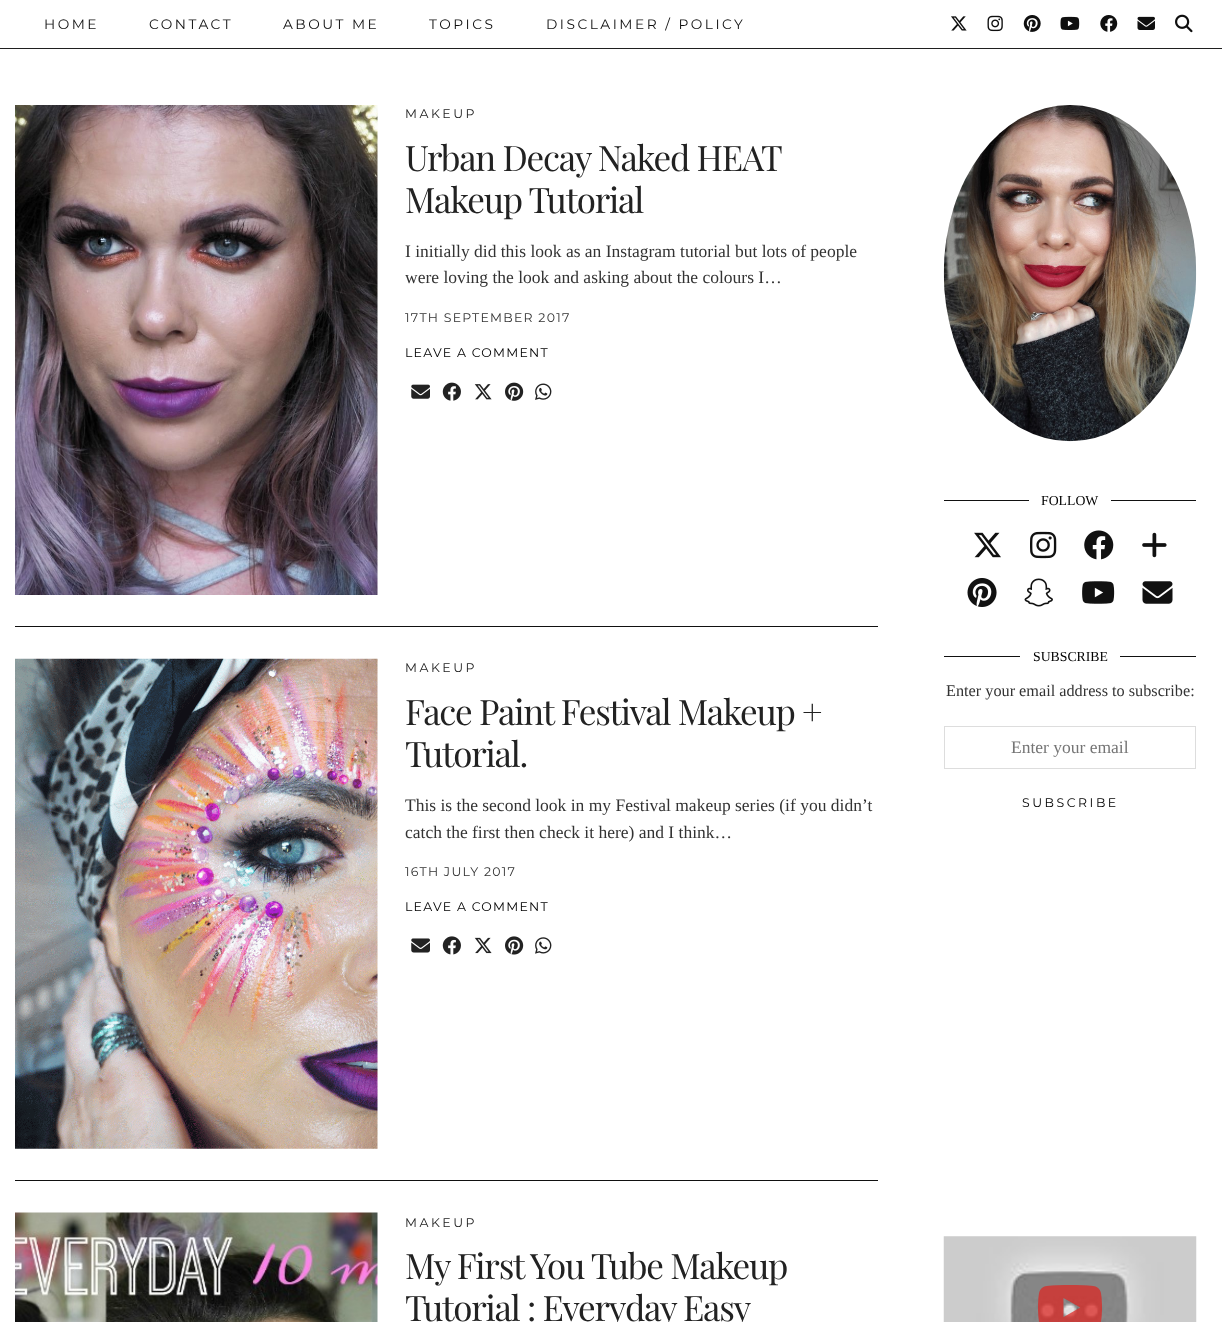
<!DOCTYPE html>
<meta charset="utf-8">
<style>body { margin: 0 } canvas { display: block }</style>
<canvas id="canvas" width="1222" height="1322"></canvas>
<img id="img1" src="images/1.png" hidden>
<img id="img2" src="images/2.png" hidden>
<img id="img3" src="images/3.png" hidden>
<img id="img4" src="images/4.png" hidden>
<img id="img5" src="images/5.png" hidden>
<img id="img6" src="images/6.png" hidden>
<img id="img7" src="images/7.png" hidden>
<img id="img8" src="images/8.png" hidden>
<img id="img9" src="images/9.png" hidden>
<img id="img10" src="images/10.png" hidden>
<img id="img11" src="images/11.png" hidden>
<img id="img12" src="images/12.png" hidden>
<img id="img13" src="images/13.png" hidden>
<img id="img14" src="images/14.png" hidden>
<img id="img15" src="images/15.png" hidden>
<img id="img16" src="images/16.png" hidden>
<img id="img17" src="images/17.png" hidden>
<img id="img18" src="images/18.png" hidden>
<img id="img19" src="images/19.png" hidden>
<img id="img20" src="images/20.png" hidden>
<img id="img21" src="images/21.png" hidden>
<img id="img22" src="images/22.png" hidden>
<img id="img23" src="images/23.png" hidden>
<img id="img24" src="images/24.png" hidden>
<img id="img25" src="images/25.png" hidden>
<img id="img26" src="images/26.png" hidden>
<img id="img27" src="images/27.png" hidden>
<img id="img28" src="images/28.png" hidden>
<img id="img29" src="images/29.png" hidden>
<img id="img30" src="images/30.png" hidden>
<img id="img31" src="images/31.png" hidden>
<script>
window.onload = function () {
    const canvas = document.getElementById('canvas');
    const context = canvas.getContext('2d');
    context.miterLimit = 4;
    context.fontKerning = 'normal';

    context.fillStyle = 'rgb(255, 255, 255)';
    context.fillRect(0, 0, 1222, 1322);
    context.fillStyle = 'rgb(31, 31, 31)';
    context.fillRect(0, 48, 1222, 1);
    context.drawImage(document.getElementById('img1'), 951, 16, 16, 15);
    context.drawImage(document.getElementById('img2'), 987, 15, 16, 17);
    context.drawImage(document.getElementById('img3'), 1023, 15, 18, 17);
    context.drawImage(document.getElementById('img4'), 1060, 16, 20, 14);
    context.drawImage(document.getElementById('img5'), 1100, 15, 18, 17);
    context.drawImage(document.getElementById('img6'), 1137, 16, 18, 14);
    context.drawImage(document.getElementById('img7'), 1175, 14, 18, 19);
    context.fillStyle = 'rgb(17, 17, 17)';
    context.fillRect(15, 626, 863, 1);
    context.drawImage(document.getElementById('img8'), 15, 105, 363, 490);
    context.drawImage(document.getElementById('img9'), 411, 384, 19, 15);
    context.drawImage(document.getElementById('img10'), 442, 382, 19, 19);
    context.drawImage(document.getElementById('img11'), 474, 384, 18, 16);
    context.drawImage(document.getElementById('img12'), 505, 382, 19, 19);
    context.drawImage(document.getElementById('img13'), 535, 383, 17, 17);
    context.fillRect(15, 1180, 863, 1);
    context.drawImage(document.getElementById('img14'), 15, 658, 363, 491);
    context.drawImage(document.getElementById('img15'), 411, 938, 19, 15);
    context.drawImage(document.getElementById('img16'), 442, 936, 19, 19);
    context.drawImage(document.getElementById('img17'), 474, 937, 18, 17);
    context.drawImage(document.getElementById('img18'), 505, 936, 19, 19);
    context.drawImage(document.getElementById('img19'), 535, 937, 17, 17);
    context.drawImage(document.getElementById('img20'), 15, 1212, 363, 110);
    context.drawImage(document.getElementById('img21'), 943, 105, 254, 337);
    context.fillRect(944, 500, 252, 1);
    context.fillStyle = 'rgb(255, 255, 255)';
    context.fillRect(1029, 500, 82, 1);
    context.drawImage(document.getElementById('img22'), 974, 532, 27, 26);
    context.drawImage(document.getElementById('img23'), 1030, 531, 27, 28);
    context.drawImage(document.getElementById('img24'), 1084, 530, 30, 30);
    context.drawImage(document.getElementById('img25'), 1142, 532, 25, 26);
    context.drawImage(document.getElementById('img26'), 967, 578, 30, 29);
    context.drawImage(document.getElementById('img27'), 1024, 578, 29, 29);
    context.drawImage(document.getElementById('img28'), 1082, 581, 33, 23);
    context.drawImage(document.getElementById('img29'), 1142, 581, 31, 23);
    context.fillStyle = 'rgb(17, 17, 17)';
    context.fillRect(944, 656, 252, 1);
    context.fillStyle = 'rgb(255, 255, 255)';
    context.fillRect(1020, 656, 100, 1);
    context.strokeStyle = 'rgb(221, 221, 221)';
    context.strokeRect(944.5, 726.5, 251, 42);
    context.drawImage(document.getElementById('img30'), 943, 1236, 254, 86);
    context.drawImage(document.getElementById('img31'), 1038, 1285, 64, 37);
    context.letterSpacing = '2.5px';
    context.font = '100 13.75px Montserrat';
    context.fillStyle = 'rgb(15, 15, 15)';
    context.fillText('HOME', 44, 29);
    context.fillText('CONTACT', 149, 29);
    context.fillText('ABOUT ME', 283, 29);
    context.fillText('TOPICS', 429, 29);
    context.fillText('DISCLAIMER / POLICY', 546, 29);
    context.font = '100 12.5px Montserrat';
    context.fillStyle = 'rgb(34, 34, 34)';
    context.fillText('MAKEUP', 405, 118);
    context.letterSpacing = '-1.25px';
    context.font = '35px Playfair Display';
    context.fillText('Urban Decay Naked HEAT', 405, 171);
    context.fillText('Makeup Tutorial', 405, 213);
    context.letterSpacing = '0px';
    context.font = '17.5px Liberation Serif';
    context.fillStyle = 'rgb(51, 51, 51)';
    context.fillText('I initially did this look as an Instagram tutorial but lots of people', 405, 257);
    context.fillText('were loving the look and asking about the colours I…', 405, 283);
    context.letterSpacing = '1.25px';
    context.font = '100 12.5px Montserrat';
    context.fillText('17TH SEPTEMBER 2017', 405, 322);
    context.fillStyle = 'rgb(0, 0, 0)';
    context.fillText('LEAVE A COMMENT', 405, 357);
    context.letterSpacing = '2.5px';
    context.fillStyle = 'rgb(34, 34, 34)';
    context.fillText('MAKEUP', 405, 672);
    context.letterSpacing = '-1.25px';
    context.font = '35px Playfair Display';
    context.fillText('Face Paint Festival Makeup +', 405, 725);
    context.fillText('Tutorial.', 405, 767);
    context.letterSpacing = '0px';
    context.font = '17.5px Liberation Serif';
    context.fillStyle = 'rgb(51, 51, 51)';
    context.fillText('This is the second look in my Festival makeup series (if you didn’t', 405, 811);
    context.fillText('catch the first then check it here) and I think…', 405, 838);
    context.letterSpacing = '1.25px';
    context.font = '100 12.5px Montserrat';
    context.fillText('16TH JULY 2017', 405, 876);
    context.fillStyle = 'rgb(0, 0, 0)';
    context.fillText('LEAVE A COMMENT', 405, 911);
    context.letterSpacing = '2.5px';
    context.fillStyle = 'rgb(34, 34, 34)';
    context.fillText('MAKEUP', 405, 1227);
    context.letterSpacing = '-1.25px';
    context.font = '35px Playfair Display';
    context.fillText('My First You Tube Makeup', 405, 1279);
    context.fillText('Tutorial : Everyday Easy', 405, 1321);
    context.letterSpacing = '0px';
    context.font = '13.75px Liberation Serif';
    context.fillStyle = 'rgb(0, 0, 0)';
    context.fillText('FOLLOW', 1041, 505);
    context.fillText('SUBSCRIBE', 1033, 661);
    context.font = '16.25px Liberation Serif';
    context.fillStyle = 'rgb(51, 51, 51)';
    context.fillText('Enter your email address to subscribe:', 946, 696);
    context.font = '17.5px Liberation Serif';
    context.fillStyle = 'rgb(117, 117, 117)';
    context.fillText('Enter your email', 1011, 753);
    context.letterSpacing = '2.5px';
    context.font = '100 12.5px Montserrat';
    context.fillStyle = 'rgb(0, 0, 0)';
    context.fillText('SUBSCRIBE', 1022, 807);
};
</script>
